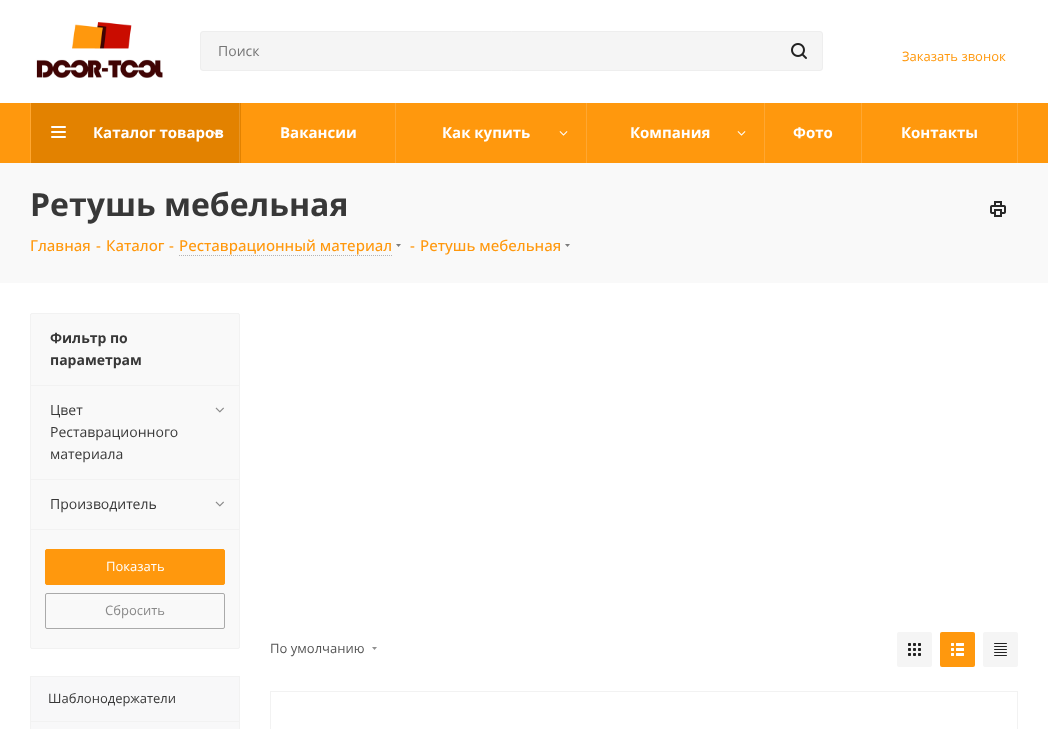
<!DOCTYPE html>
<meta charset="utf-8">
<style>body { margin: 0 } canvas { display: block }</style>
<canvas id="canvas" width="1048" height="729"></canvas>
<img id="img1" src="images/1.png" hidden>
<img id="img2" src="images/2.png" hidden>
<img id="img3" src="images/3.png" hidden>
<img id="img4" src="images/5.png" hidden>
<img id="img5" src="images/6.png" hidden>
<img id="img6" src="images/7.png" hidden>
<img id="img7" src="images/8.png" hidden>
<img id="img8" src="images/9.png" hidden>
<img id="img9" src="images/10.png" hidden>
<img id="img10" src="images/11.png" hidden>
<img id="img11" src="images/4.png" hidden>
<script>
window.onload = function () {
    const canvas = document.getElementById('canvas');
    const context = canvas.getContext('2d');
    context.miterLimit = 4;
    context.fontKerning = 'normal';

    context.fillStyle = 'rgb(255, 255, 255)';
    context.fillRect(0, 0, 1048, 729);
    context.drawImage(document.getElementById('img1'), 36, 22, 127, 56);
    context.fillStyle = 'rgb(245, 245, 245)';
    context.beginPath();
    context.roundRect(200.5, 31.5, 622, 39, 2.5);
    context.fill();
    context.strokeStyle = 'rgb(238, 238, 238)';
    context.stroke();
    context.drawImage(document.getElementById('img2'), 791, 43, 16, 16);
    context.fillStyle = 'rgb(255, 152, 13)';
    context.fillRect(0, 103, 1048, 60);
    context.fillStyle = 'rgb(255, 167, 49)';
    context.fillRect(30, 103, 1, 60);
    context.fillStyle = 'rgb(227, 130, 0)';
    context.fillRect(31, 103, 210, 60);
    context.fillStyle = 'rgb(231, 149, 38)';
    context.fillRect(239, 103, 1, 60);
    context.drawImage(document.getElementById('img3'), 51, 126, 15, 12);
    context.fillStyle = 'rgb(255, 167, 49)';
    context.fillRect(395, 103, 1, 60);
    context.fillRect(586, 103, 1, 60);
    context.drawImage(document.getElementById('img4'), 559, 131, 9, 5);
    context.fillRect(764, 103, 1, 60);
    context.drawImage(document.getElementById('img4'), 737, 131, 9, 5);
    context.fillRect(861, 103, 1, 60);
    context.fillRect(1017, 103, 1, 60);
    context.fillStyle = 'rgb(249, 249, 249)';
    context.fillRect(0, 163, 1048, 120);
    context.drawImage(document.getElementById('img5'), 990, 201, 16, 16);
    context.beginPath();
    context.moveTo(179, 255.5);
    context.lineTo(392, 255.5);
    context.strokeStyle = 'rgb(180, 180, 180)';
    context.setLineDash([1, 1]);
    context.stroke();
    context.drawImage(document.getElementById('img6'), 396, 244, 5, 3);
    context.drawImage(document.getElementById('img6'), 565, 244, 5, 3);
    context.beginPath();
    context.roundRect(30.5, 313.5, 209, 335, 1.5);
    context.fill();
    context.strokeStyle = 'rgb(242, 242, 242)';
    context.setLineDash([]);
    context.stroke();
    context.fillStyle = 'rgb(242, 242, 242)';
    context.fillRect(31, 385, 208, 1);
    context.fillRect(31, 479, 208, 1);
    context.drawImage(document.getElementById('img7'), 215, 407, 9, 6);
    context.fillRect(31, 529, 208, 1);
    context.drawImage(document.getElementById('img7'), 215, 501, 9, 6);
    context.fillStyle = 'rgb(255, 152, 13)';
    context.beginPath();
    context.roundRect(45.5, 549.5, 179, 35, 1.5);
    context.fill();
    context.strokeStyle = 'rgb(255, 152, 13)';
    context.stroke();
    context.beginPath();
    context.roundRect(45.5, 593.5, 179, 35, 1.5);
    context.strokeStyle = 'rgb(170, 170, 170)';
    context.stroke();
    context.fillStyle = 'rgb(248, 248, 249)';
    context.fillRect(31, 677, 208, 44);
    context.fillStyle = 'rgb(242, 242, 242)';
    context.fillRect(30, 676, 210, 1);
    context.fillRect(239, 676, 1, 45);
    context.fillRect(30, 676, 1, 45);
    context.fillStyle = 'rgb(248, 248, 249)';
    context.fillRect(31, 722, 208, 7);
    context.fillStyle = 'rgb(242, 242, 242)';
    context.fillRect(30, 721, 210, 1);
    context.fillRect(239, 721, 1, 8);
    context.fillRect(30, 721, 1, 8);
    context.fillStyle = 'rgb(144, 144, 144)';
    context.beginPath();
    context.moveTo(372, 647);
    context.lineTo(377, 647);
    context.lineTo(374.5, 650);
    context.closePath();
    context.fill('evenodd');
    context.fillStyle = 'rgb(245, 245, 245)';
    context.beginPath();
    context.roundRect(897, 632, 35, 35, 2);
    context.fill();
    context.drawImage(document.getElementById('img8'), 908, 643, 13, 13);
    context.fillStyle = 'rgb(255, 152, 13)';
    context.beginPath();
    context.roundRect(940, 632, 35, 35, 2);
    context.fill();
    context.drawImage(document.getElementById('img9'), 951, 643, 13, 13);
    context.fillStyle = 'rgb(245, 245, 245)';
    context.beginPath();
    context.roundRect(983, 632, 35, 35, 2);
    context.fill();
    context.drawImage(document.getElementById('img10'), 994, 643, 13, 13);
    context.strokeStyle = 'rgb(242, 242, 242)';
    context.strokeRect(270.5, 691.5, 747, 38);
    context.font = '14px Open Sans';
    context.fillStyle = 'rgb(117, 117, 117)';
    context.fillText('Поиск', 218, 56);
    context.font = '13px Open Sans';
    context.fillStyle = 'rgb(255, 152, 13)';
    context.fillText('Заказать звонок', 902, 61);
    context.font = 'bold 15px Open Sans';
    context.fillStyle = 'rgb(255, 255, 255)';
    context.fillText('Каталог товаров', 93, 138);
    context.drawImage(document.getElementById('img11'), 213, 131, 8, 5);
    context.fillText('Вакансии', 280, 138);
    context.fillText('Как купить', 442, 138);
    context.fillText('Компания', 630, 138);
    context.fillText('Фото', 793, 138);
    context.fillText('Контакты', 901, 138);
    context.font = 'bold 32px Open Sans';
    context.fillStyle = 'rgb(56, 56, 56)';
    context.fillText('Ретушь мебельная', 30, 216);
    context.font = '500 15px Open Sans';
    context.fillStyle = 'rgb(255, 152, 13)';
    context.fillText('Главная', 30, 251);
    context.fillText('-', 96, 251);
    context.fillText('Каталог', 106, 251);
    context.fillText('-', 169, 251);
    context.fillText('Реставрационный материал', 179, 251);
    context.fillText('-', 410, 251);
    context.fillText('Ретушь мебельная', 420, 251);
    context.font = 'bold 14px Open Sans';
    context.fillStyle = 'rgb(56, 56, 56)';
    context.fillText('Фильтр по', 50, 343);
    context.fillText('параметрам', 50, 365);
    context.font = '14px Open Sans';
    context.fillText('Цвет', 50, 415);
    context.fillText('Реставрационного', 50, 437);
    context.fillText('материала', 50, 459);
    context.fillText('Производитель', 50, 509);
    context.font = '13px Open Sans';
    context.fillStyle = 'rgb(255, 255, 255)';
    context.fillText('Показать', 106, 571);
    context.fillStyle = 'rgb(136, 136, 136)';
    context.fillText('Сбросить', 105, 615);
    context.fillStyle = 'rgb(56, 56, 56)';
    context.fillText('Шаблонодержатели', 48, 703);
    context.fillStyle = 'rgb(85, 85, 85)';
    context.fillText('По умолчанию', 270, 653);
};
</script>
